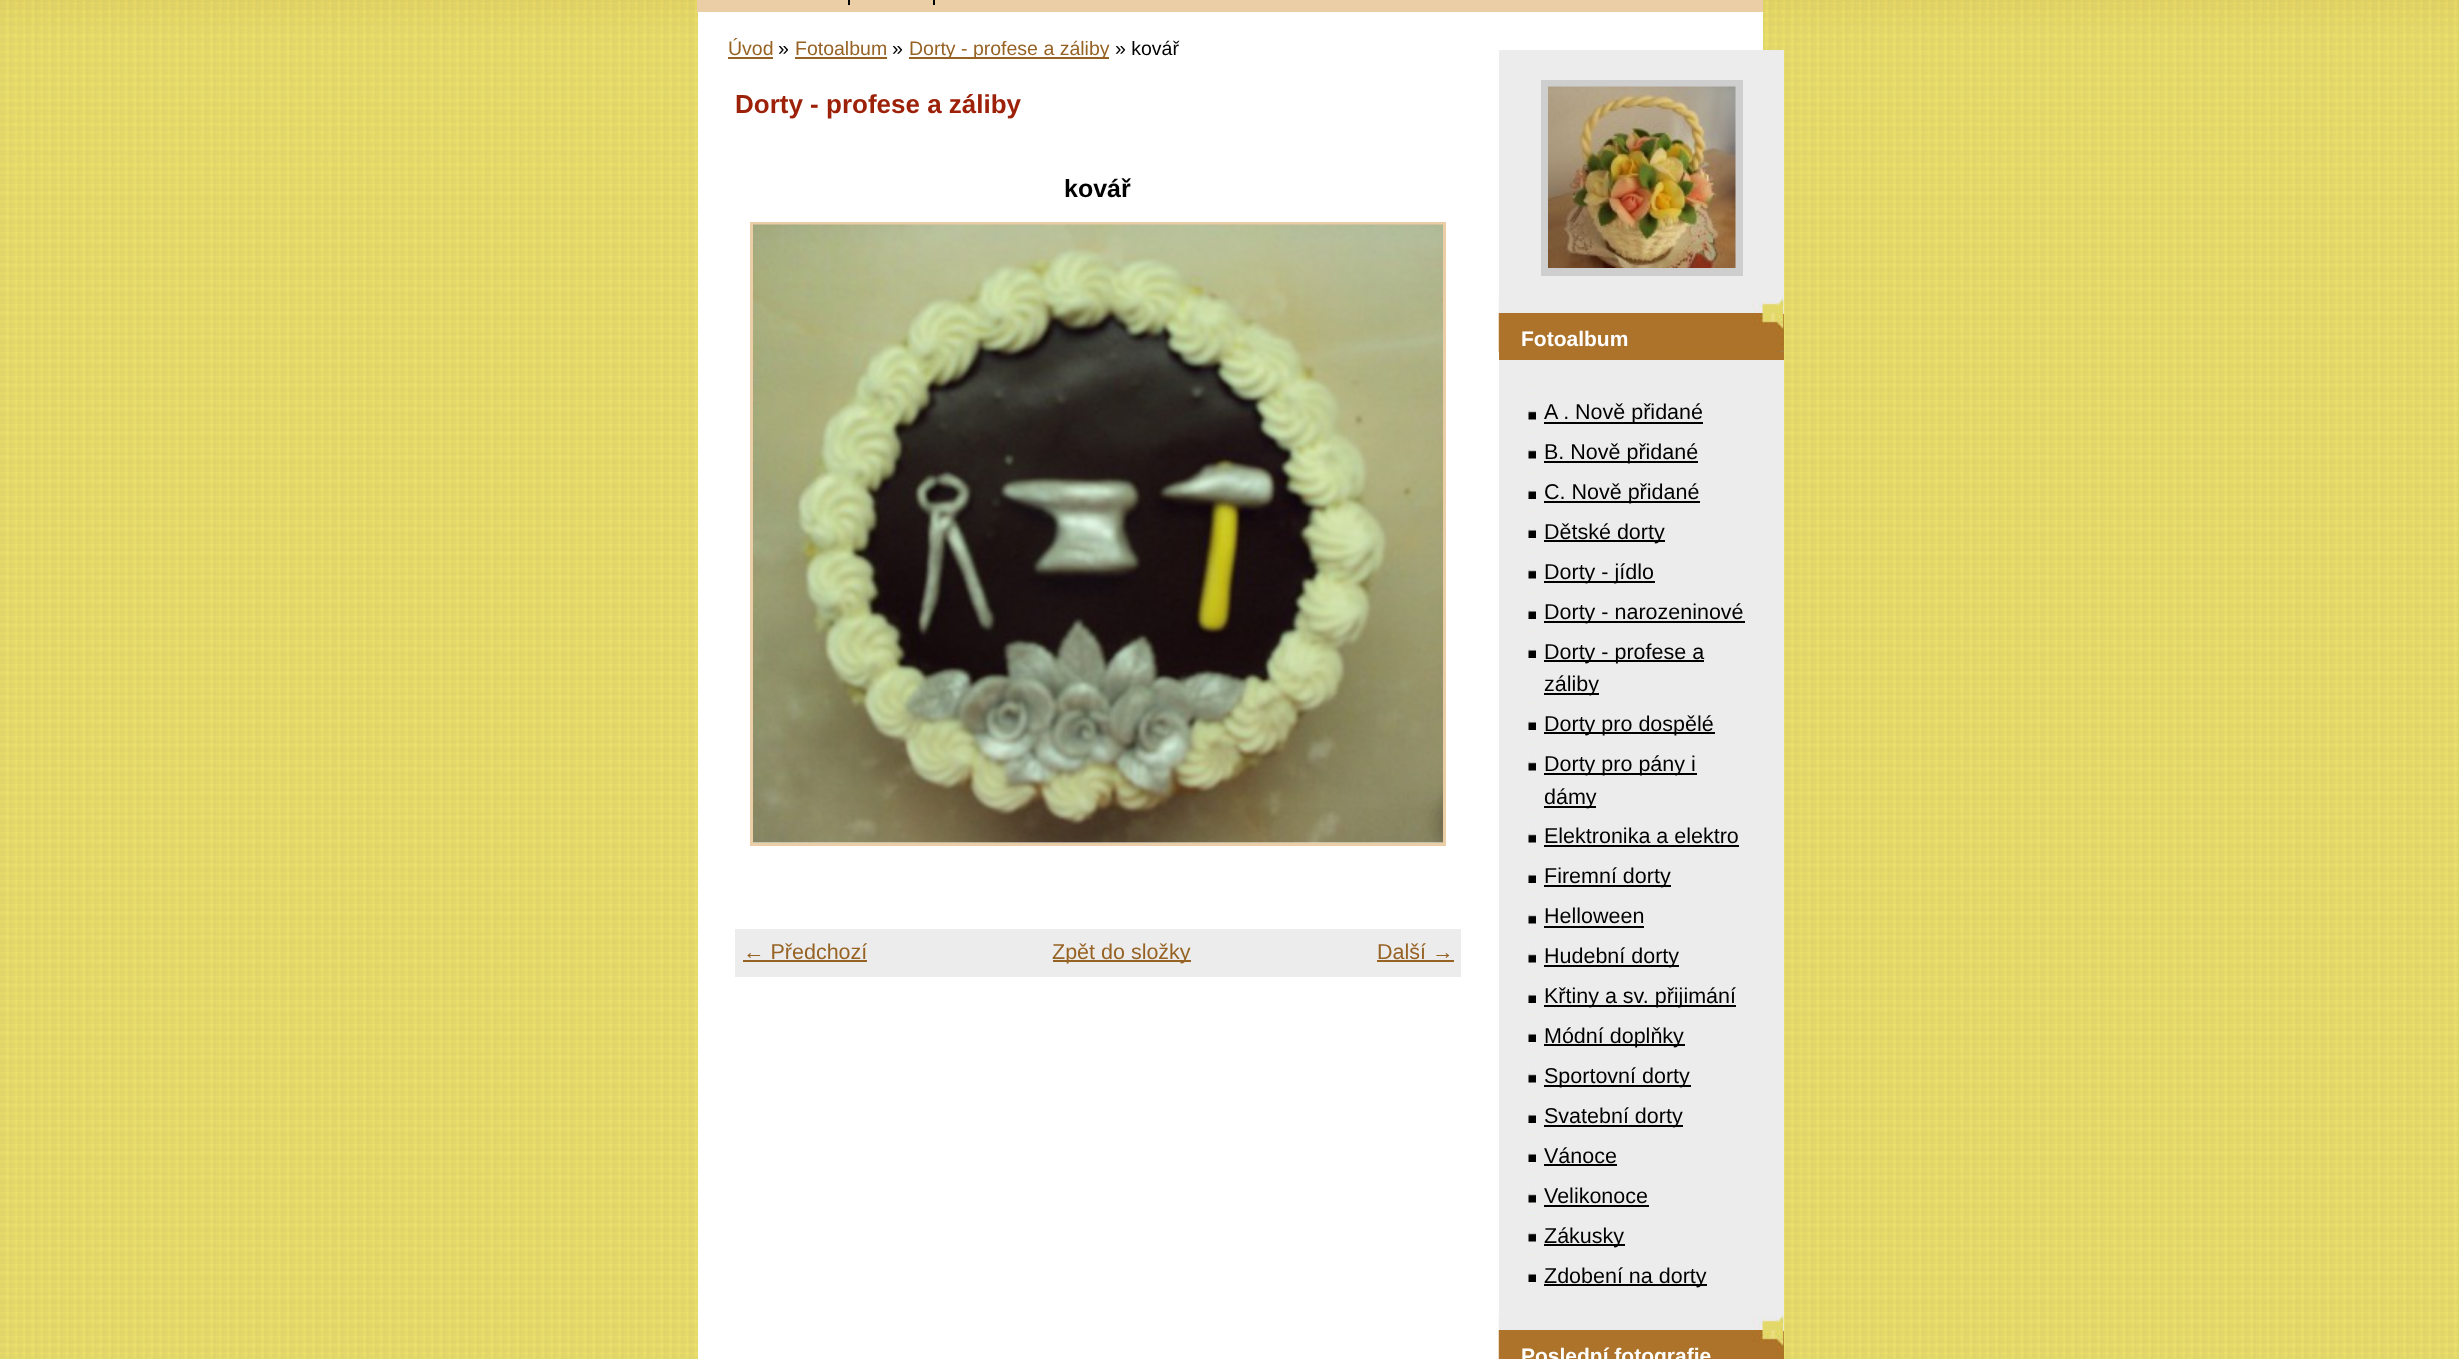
<!DOCTYPE html>
<meta charset="utf-8">
<style>body { margin: 0 } canvas { display: block }</style>
<canvas id="canvas" width="2459" height="1359"></canvas>
<img id="img1" src="images/1.png" hidden>
<img id="img2" src="images/2.png" hidden>
<img id="img3" src="images/3.png" hidden>
<img id="img4" src="images/4.png" hidden>
<img id="img5" src="images/5.png" hidden>
<img id="img6" src="images/6.png" hidden>
<img id="img7" src="images/7.png" hidden>
<img id="img8" src="images/8.png" hidden>
<img id="img9" src="images/9.png" hidden>
<script>
window.onload = function () {
    const canvas = document.getElementById('canvas');
    const context = canvas.getContext('2d');
    context.miterLimit = 4;
    context.fontKerning = 'normal';

    context.fillStyle = 'rgb(255, 255, 255)';
    context.fillRect(0, 0, 2459, 1359);
    context.drawImage(document.getElementById('img1'), 0, 175, 2459, 1184);
    context.drawImage(document.getElementById('img2'), 0, 0, 2459, 175);
    context.fillRect(698, 12, 1065, 1347);
    context.fillStyle = 'rgb(235, 205, 166)';
    context.fillRect(697, 0, 1066, 12);
    context.fillStyle = 'rgb(0, 0, 0)';
    context.fillRect(848, 0, 2, 5);
    context.fillRect(933, 0, 2, 5);
    context.fillStyle = 'rgb(151, 99, 37)';
    context.fillRect(728, 57, 45, 2);
    context.fillRect(795, 57, 92, 2);
    context.fillRect(909, 57, 200, 2);
    context.strokeStyle = 'rgb(235, 205, 166)';
    context.lineWidth = 3;
    context.strokeRect(751.5, 223.5, 693, 621);
    context.drawImage(document.getElementById('img3'), 753, 224, 690, 619);
    context.fillStyle = 'rgb(236, 236, 236)';
    context.fillRect(735, 929, 726, 48);
    context.fillStyle = 'rgb(151, 99, 37)';
    context.fillRect(743, 960, 124, 2);
    context.fillRect(1053, 960, 138, 2);
    context.fillRect(1377, 960, 77, 2);
    context.fillStyle = 'rgb(236, 236, 236)';
    context.fillRect(1499, 50, 285, 1281);
    context.drawImage(document.getElementById('img4'), 1498, 298, 286, 15);
    context.strokeStyle = 'rgb(206, 206, 206)';
    context.lineWidth = 8;
    context.strokeRect(1545, 84, 194, 188);
    context.drawImage(document.getElementById('img5'), 1548, 86, 188, 182);
    context.fillStyle = 'rgb(173, 115, 42)';
    context.fillRect(1499, 314, 285, 46);
    context.drawImage(document.getElementById('img6'), 1498, 313, 286, 39);
    context.drawImage(document.getElementById('img4'), 1498, 1315, 286, 15);
    context.drawImage(document.getElementById('img7'), 1528, 391, 8, 29);
    context.fillStyle = 'rgb(0, 0, 0)';
    context.fillRect(1544, 422, 159, 2);
    context.drawImage(document.getElementById('img7'), 1528, 430, 8, 29);
    context.fillRect(1544, 461, 154, 2);
    context.drawImage(document.getElementById('img8'), 1528, 472, 8, 27);
    context.fillRect(1544, 501, 156, 2);
    context.drawImage(document.getElementById('img8'), 1528, 511, 8, 27);
    context.fillRect(1544, 540, 121, 2);
    context.drawImage(document.getElementById('img7'), 1528, 550, 8, 29);
    context.fillRect(1544, 581, 111, 2);
    context.drawImage(document.getElementById('img8'), 1528, 592, 8, 27);
    context.fillRect(1544, 621, 201, 2);
    context.drawImage(document.getElementById('img8'), 1528, 631, 8, 27);
    context.fillRect(1544, 660, 160, 2);
    context.fillRect(1544, 693, 55, 2);
    context.drawImage(document.getElementById('img8'), 1528, 703, 8, 27);
    context.fillRect(1544, 732, 171, 2);
    context.drawImage(document.getElementById('img7'), 1528, 742, 8, 29);
    context.fillRect(1544, 773, 153, 2);
    context.fillRect(1544, 806, 52, 2);
    context.drawImage(document.getElementById('img7'), 1528, 814, 8, 29);
    context.fillRect(1544, 845, 195, 2);
    context.drawImage(document.getElementById('img8'), 1528, 856, 8, 27);
    context.fillRect(1544, 885, 127, 2);
    context.drawImage(document.getElementById('img7'), 1528, 895, 8, 29);
    context.fillRect(1544, 926, 100, 2);
    context.drawImage(document.getElementById('img7'), 1528, 934, 8, 29);
    context.fillRect(1544, 965, 135, 2);
    context.drawImage(document.getElementById('img8'), 1528, 976, 8, 27);
    context.fillRect(1544, 1005, 192, 2);
    context.drawImage(document.getElementById('img8'), 1528, 1015, 8, 27);
    context.fillRect(1544, 1044, 141, 2);
    context.drawImage(document.getElementById('img7'), 1528, 1054, 8, 29);
    context.fillRect(1544, 1085, 147, 2);
    context.drawImage(document.getElementById('img8'), 1528, 1096, 8, 27);
    context.fillRect(1544, 1125, 139, 2);
    context.drawImage(document.getElementById('img8'), 1528, 1135, 8, 27);
    context.fillRect(1544, 1164, 73, 2);
    context.drawImage(document.getElementById('img7'), 1528, 1174, 8, 29);
    context.fillRect(1544, 1205, 105, 2);
    context.drawImage(document.getElementById('img7'), 1528, 1213, 8, 29);
    context.fillRect(1544, 1244, 81, 2);
    context.drawImage(document.getElementById('img8'), 1528, 1255, 8, 27);
    context.fillRect(1544, 1284, 163, 2);
    context.fillStyle = 'rgb(173, 115, 42)';
    context.fillRect(1783, 1331, 1, 28);
    context.drawImage(document.getElementById('img9'), 1498, 1330, 286, 29);
    context.font = '19.5px Liberation Sans';
    context.fillStyle = 'rgb(151, 99, 37)';
    context.fillText('Úvod', 728, 55);
    context.fillStyle = 'rgb(0, 0, 0)';
    context.fillText('»', 778, 55);
    context.fillStyle = 'rgb(151, 99, 37)';
    context.fillText('Fotoalbum', 795, 55);
    context.fillStyle = 'rgb(0, 0, 0)';
    context.fillText('»', 892, 55);
    context.fillStyle = 'rgb(151, 99, 37)';
    context.fillText('Dorty - profese a záliby', 909, 55);
    context.fillStyle = 'rgb(0, 0, 0)';
    context.fillText('» kovář', 1115, 55);
    context.font = 'bold 26px Liberation Sans';
    context.fillStyle = 'rgb(157, 33, 9)';
    context.fillText('Dorty - profese a záliby', 735, 113);
    context.font = 'bold 25px Liberation Sans';
    context.fillStyle = 'rgb(0, 0, 0)';
    context.fillText('kovář', 1064, 197);
    context.font = '21.5px Liberation Sans';
    context.fillStyle = 'rgb(151, 99, 37)';
    context.fillText('← Předchozí', 743, 959);
    context.fillText('Zpět do složky', 1052, 959);
    context.fillText('Další →', 1377, 959);
    context.font = 'bold 21px Liberation Sans';
    context.fillStyle = 'rgb(255, 255, 255)';
    context.fillText('Fotoalbum', 1521, 346);
    context.font = '21.5px Liberation Sans';
    context.fillStyle = 'rgb(0, 0, 0)';
    context.fillText('A . Nově přidané', 1544, 419);
    context.fillText('B. Nově přidané', 1544, 459);
    context.fillText('C. Nově přidané', 1544, 499);
    context.fillText('Dětské dorty', 1544, 539);
    context.fillText('Dorty - jídlo', 1544, 579);
    context.fillText('Dorty - narozeninové', 1544, 619);
    context.fillText('Dorty - profese a', 1544, 659);
    context.fillText('záliby', 1544, 691);
    context.fillText('Dorty pro dospělé', 1544, 731);
    context.fillText('Dorty pro pány i', 1544, 771);
    context.fillText('dámy', 1544, 804);
    context.fillText('Elektronika a elektro', 1544, 843);
    context.fillText('Firemní dorty', 1544, 883);
    context.fillText('Helloween', 1544, 923);
    context.fillText('Hudební dorty', 1544, 963);
    context.fillText('Křtiny a sv. přijimání', 1544, 1003);
    context.fillText('Módní doplňky', 1544, 1043);
    context.fillText('Sportovní dorty', 1544, 1083);
    context.fillText('Svatební dorty', 1544, 1123);
    context.fillText('Vánoce', 1544, 1163);
    context.fillText('Velikonoce', 1544, 1203);
    context.fillText('Zákusky', 1544, 1243);
    context.fillText('Zdobení na dorty', 1544, 1283);
    context.font = 'bold 21px Liberation Sans';
    context.fillStyle = 'rgb(255, 255, 255)';
    context.fillText('Poslední fotografie', 1521, 1363);
};
</script>
